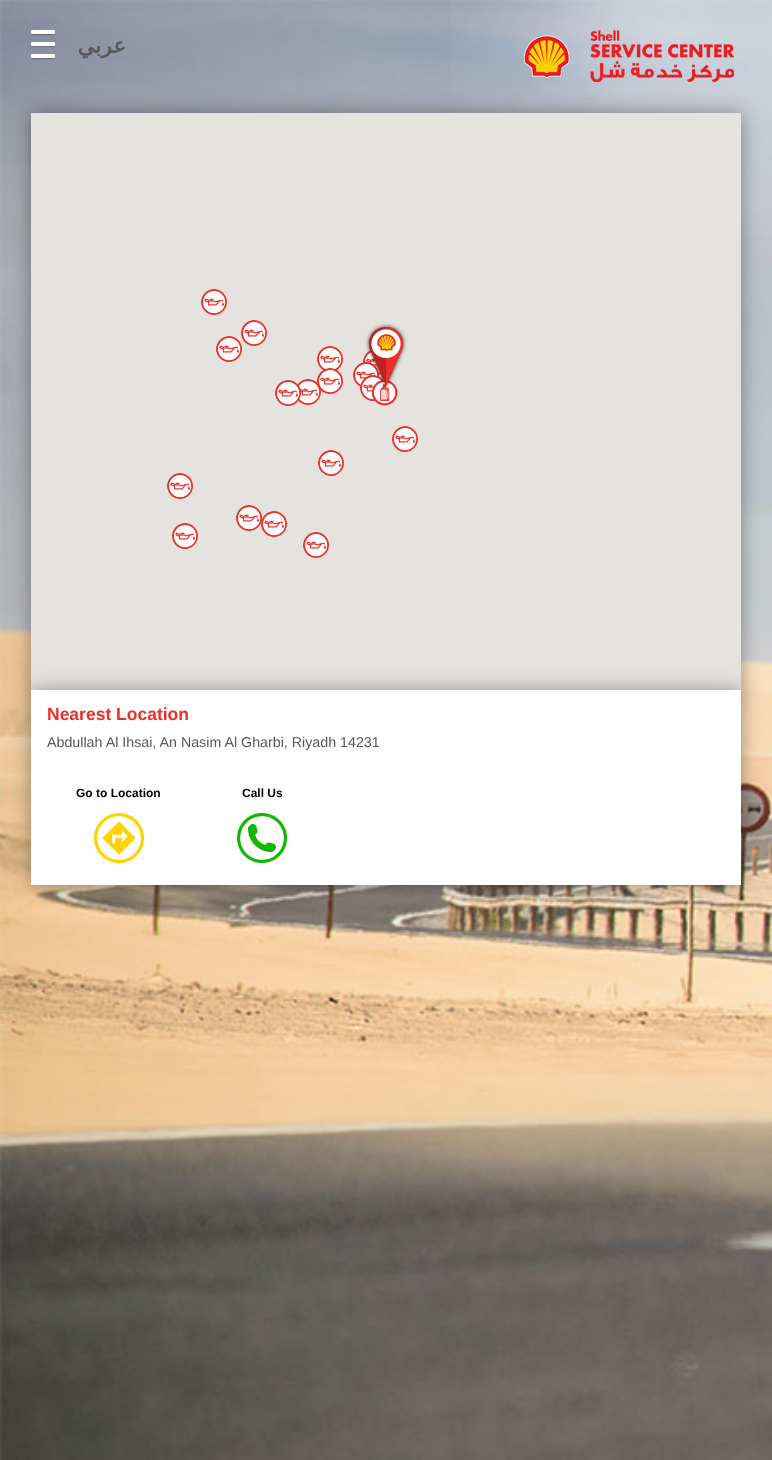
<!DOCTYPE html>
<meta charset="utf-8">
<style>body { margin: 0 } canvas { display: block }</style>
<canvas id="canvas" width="772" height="1460"></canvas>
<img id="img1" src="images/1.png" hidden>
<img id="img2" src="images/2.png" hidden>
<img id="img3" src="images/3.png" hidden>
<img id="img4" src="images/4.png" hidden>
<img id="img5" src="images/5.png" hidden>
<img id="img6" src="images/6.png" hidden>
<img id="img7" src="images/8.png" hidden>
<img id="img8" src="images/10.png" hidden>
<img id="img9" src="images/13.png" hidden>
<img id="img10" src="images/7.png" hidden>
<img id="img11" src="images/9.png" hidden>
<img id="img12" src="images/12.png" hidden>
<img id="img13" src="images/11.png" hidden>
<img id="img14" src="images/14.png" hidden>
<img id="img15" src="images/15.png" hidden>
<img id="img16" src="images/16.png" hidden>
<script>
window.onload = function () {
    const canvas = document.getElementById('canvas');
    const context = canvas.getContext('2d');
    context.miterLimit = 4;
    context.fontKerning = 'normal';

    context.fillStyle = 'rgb(255, 255, 255)';
    context.fillRect(0, 0, 772, 1460);
    context.drawImage(document.getElementById('img1'), 0, 0, 772, 1460);
    context.fillStyle = 'rgb(101, 108, 121)';
    context.beginPath();
    context.moveTo(31, 33);
    context.bezierCurveTo(31, 36, 32.5, 35, 35.5, 35);
    context.lineTo(50.5, 35);
    context.bezierCurveTo(53.5, 35, 55, 36, 55, 33);
    context.bezierCurveTo(55, 33.5, 54.5, 34, 54, 34);
    context.lineTo(32, 34);
    context.bezierCurveTo(31.5, 34, 31, 33.5, 31, 33);
    context.closePath();
    context.fill();
    context.fillStyle = 'rgb(255, 255, 255)';
    context.beginPath();
    context.roundRect(31, 30, 24, 4, 1);
    context.fill();
    context.fillStyle = 'rgb(102, 108, 121)';
    context.beginPath();
    context.moveTo(31, 45);
    context.bezierCurveTo(31, 48, 32.5, 47, 35.5, 47);
    context.lineTo(50.5, 47);
    context.bezierCurveTo(53.5, 47, 55, 48, 55, 45);
    context.bezierCurveTo(55, 45.5, 54.5, 46, 54, 46);
    context.lineTo(32, 46);
    context.bezierCurveTo(31.5, 46, 31, 45.5, 31, 45);
    context.closePath();
    context.fill();
    context.fillStyle = 'rgb(255, 255, 255)';
    context.beginPath();
    context.roundRect(31, 42, 24, 4, 1);
    context.fill();
    context.fillStyle = 'rgb(105, 110, 122)';
    context.beginPath();
    context.moveTo(31, 57);
    context.bezierCurveTo(31, 60, 32.5, 59, 35.5, 59);
    context.lineTo(50.5, 59);
    context.bezierCurveTo(53.5, 59, 55, 60, 55, 57);
    context.bezierCurveTo(55, 57.5, 54.5, 58, 54, 58);
    context.lineTo(32, 58);
    context.bezierCurveTo(31.5, 58, 31, 57.5, 31, 57);
    context.closePath();
    context.fill();
    context.fillStyle = 'rgb(255, 255, 255)';
    context.beginPath();
    context.roundRect(31, 54, 24, 4, 1);
    context.fill();
    context.drawImage(document.getElementById('img2'), 450, 0, 322, 237);
    context.drawImage(document.getElementById('img3'), 524, 30, 210, 52);
    context.fillStyle = 'rgba(0, 0, 0, 0.37)';
    context.filter = 'blur(9.5px)';
    context.beginPath();
    context.rect(31, 113, 710, 580);
    context.fill();
    context.filter = 'none';
    context.fillStyle = 'rgb(229, 227, 223)';
    context.fillRect(31, 113, 710, 577);
    context.drawImage(document.getElementById('img4'), 201, 289, 26, 26);
    context.drawImage(document.getElementById('img4'), 241, 320, 26, 26);
    context.drawImage(document.getElementById('img5'), 216, 336, 26, 26);
    context.drawImage(document.getElementById('img6'), 317, 346, 26, 25);
    context.drawImage(document.getElementById('img7'), 363, 350, 18, 25);
    context.drawImage(document.getElementById('img8'), 353, 362, 26, 25);
    context.drawImage(document.getElementById('img9'), 360, 375, 23, 26);
    context.drawImage(document.getElementById('img10'), 365, 323, 42, 83);
    context.drawImage(document.getElementById('img11'), 317, 368, 26, 26);
    context.drawImage(document.getElementById('img12'), 297, 379, 24, 26);
    context.drawImage(document.getElementById('img13'), 275, 380, 26, 26);
    context.drawImage(document.getElementById('img4'), 392, 426, 26, 26);
    context.drawImage(document.getElementById('img4'), 318, 450, 26, 26);
    context.drawImage(document.getElementById('img4'), 167, 473, 26, 26);
    context.drawImage(document.getElementById('img4'), 172, 523, 26, 26);
    context.drawImage(document.getElementById('img4'), 236, 505, 26, 26);
    context.drawImage(document.getElementById('img14'), 261, 511, 26, 26);
    context.drawImage(document.getElementById('img4'), 303, 532, 26, 26);
    context.fillStyle = 'rgba(0, 0, 0, 0.37)';
    context.filter = 'blur(9.5px)';
    context.beginPath();
    context.rect(31, 690, 710, 195);
    context.fill();
    context.filter = 'none';
    context.fillStyle = 'rgb(255, 255, 255)';
    context.fillRect(31, 690, 710, 195);
    context.drawImage(document.getElementById('img15'), 94, 813, 50, 50);
    context.drawImage(document.getElementById('img16'), 237, 813, 50, 50);
    context.direction = 'rtl';
    context.font = 'bold 21.5px DejaVu Sans';
    context.fillStyle = 'rgb(88, 88, 90)';
    context.fillText('عربي', 126, 53);
    context.direction = 'ltr';
    context.font = 'bold 17.5px Liberation Sans';
    context.fillStyle = 'rgb(238, 46, 41)';
    context.fillText('Nearest Location', 47, 720);
    context.font = '14.25px Liberation Sans';
    context.fillStyle = 'rgb(88, 88, 90)';
    context.fillText('Abdullah Al Ihsai, An Nasim Al Gharbi, Riyadh 14231', 47, 747);
    context.font = 'bold 12px Liberation Sans';
    context.fillStyle = 'rgb(0, 0, 0)';
    context.fillText('Go to Location', 76, 797);
    context.fillText('Call Us', 242, 797);
};
</script>
